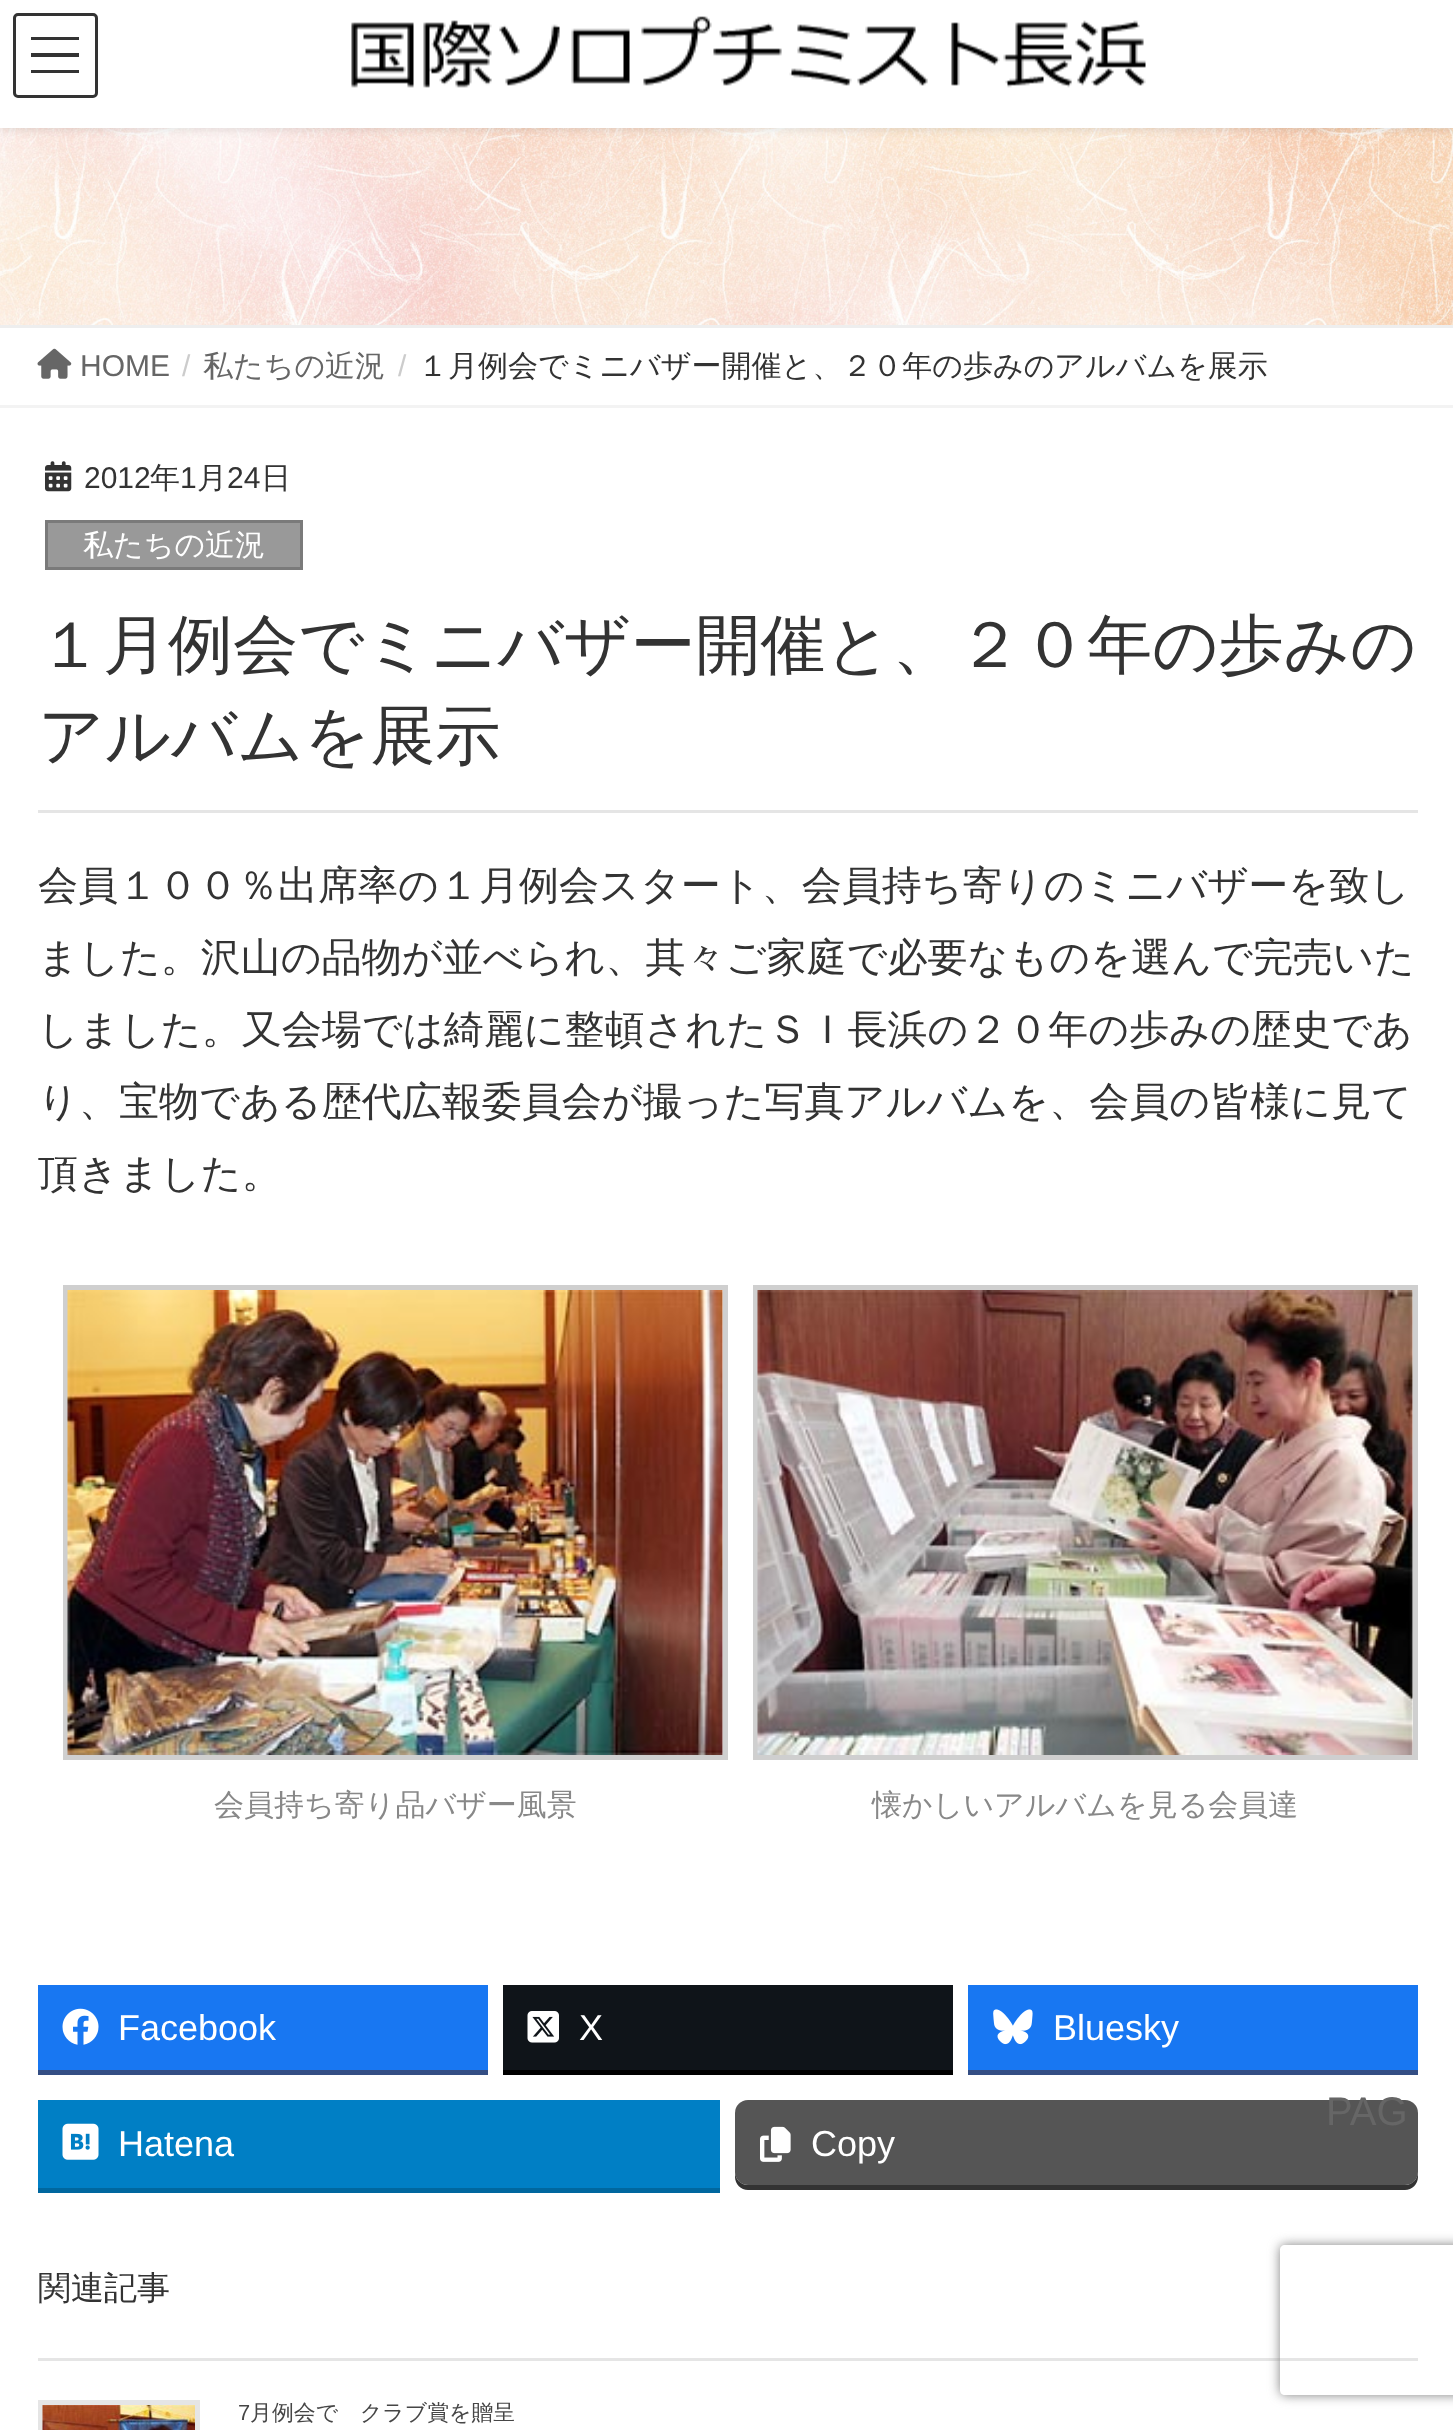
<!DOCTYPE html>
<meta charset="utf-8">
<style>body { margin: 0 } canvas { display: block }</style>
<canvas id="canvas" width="1453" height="2430"></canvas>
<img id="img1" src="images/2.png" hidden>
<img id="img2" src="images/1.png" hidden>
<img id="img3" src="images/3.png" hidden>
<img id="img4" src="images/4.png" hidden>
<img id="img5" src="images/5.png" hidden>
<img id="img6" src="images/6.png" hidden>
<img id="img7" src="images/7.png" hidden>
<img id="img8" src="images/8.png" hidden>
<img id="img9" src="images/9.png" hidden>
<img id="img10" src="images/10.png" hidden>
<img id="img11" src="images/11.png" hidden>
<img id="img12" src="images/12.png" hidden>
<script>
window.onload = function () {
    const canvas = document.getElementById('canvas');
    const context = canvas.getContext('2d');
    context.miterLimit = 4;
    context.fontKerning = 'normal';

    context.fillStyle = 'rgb(255, 255, 255)';
    context.fillRect(0, 0, 1453, 2430);
    context.drawImage(document.getElementById('img1'), 0, 128, 1453, 197);
    context.fillStyle = 'rgba(0, 0, 0, 0.1)';
    context.filter = 'blur(4px)';
    context.beginPath();
    context.rect(0, 3, 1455, 127);
    context.fill();
    context.filter = 'none';
    context.fillStyle = 'rgb(255, 255, 255)';
    context.fillRect(0, 0, 1453, 128);
    context.drawImage(document.getElementById('img2'), 351, 16, 795, 72);
    context.fillStyle = 'rgb(51, 51, 51)';
    context.fillRect(31, 37, 48, 3);
    context.fillRect(31, 53, 48, 4);
    context.fillRect(31, 70, 48, 3);
    context.beginPath();
    context.roundRect(14.5, 14.5, 82, 82, 3.5);
    context.strokeStyle = 'rgb(51, 51, 51)';
    context.lineWidth = 3;
    context.stroke();
    context.fillStyle = 'rgb(238, 238, 238)';
    context.fillRect(0, 325, 1453, 3);
    context.fillStyle = 'rgb(243, 243, 243)';
    context.fillRect(0, 405, 1453, 3);
    context.drawImage(document.getElementById('img3'), 37, 348, 35, 31);
    context.fillStyle = 'rgb(229, 229, 229)';
    context.fillRect(38, 810, 1380, 3);
    context.drawImage(document.getElementById('img4'), 45, 461, 27, 31);
    context.fillStyle = 'rgb(153, 153, 153)';
    context.beginPath();
    context.rect(46.5, 521.5, 255, 47);
    context.fill();
    context.strokeStyle = 'rgb(122, 122, 122)';
    context.stroke();
    context.strokeStyle = 'rgb(207, 207, 207)';
    context.lineWidth = 5;
    context.strokeRect(65.5, 1287.5, 660, 470);
    context.drawImage(document.getElementById('img5'), 67, 1290, 656, 465);
    context.strokeRect(755.5, 1287.5, 660, 470);
    context.drawImage(document.getElementById('img6'), 757, 1290, 656, 465);
    context.fillStyle = 'rgb(52, 78, 132)';
    context.beginPath();
    context.moveTo(38, 2070);
    context.lineTo(38, 2075);
    context.lineTo(488, 2075);
    context.lineTo(488, 1990);
    context.lineTo(488, 2070);
    context.closePath();
    context.fill();
    context.fillStyle = 'rgb(24, 119, 242)';
    context.fillRect(38, 1985, 450, 85);
    context.drawImage(document.getElementById('img7'), 62, 2008, 37, 37);
    context.fillStyle = 'rgb(0, 0, 0)';
    context.beginPath();
    context.moveTo(503, 2070);
    context.lineTo(503, 2075);
    context.lineTo(953, 2075);
    context.lineTo(953, 1990);
    context.lineTo(952, 1990);
    context.lineTo(952, 2070);
    context.closePath();
    context.fill();
    context.fillStyle = 'rgb(15, 20, 25)';
    context.fillRect(503, 1985, 450, 85);
    context.drawImage(document.getElementById('img8'), 527, 2011, 32, 32);
    context.fillStyle = 'rgb(52, 78, 132)';
    context.beginPath();
    context.moveTo(968, 2070);
    context.lineTo(968, 2075);
    context.lineTo(1418, 2075);
    context.lineTo(1418, 1990);
    context.lineTo(1418, 2070);
    context.closePath();
    context.fill();
    context.fillStyle = 'rgb(24, 119, 242)';
    context.fillRect(968, 1985, 450, 85);
    context.drawImage(document.getElementById('img9'), 993, 2009, 40, 36);
    context.fillStyle = 'rgb(0, 103, 159)';
    context.fillRect(38, 2188, 682, 5);
    context.fillStyle = 'rgb(0, 127, 197)';
    context.fillRect(38, 2100, 682, 88);
    context.drawImage(document.getElementById('img10'), 62, 2123, 37, 37);
    context.fillStyle = 'rgb(51, 51, 51)';
    context.beginPath();
    context.moveTo(735, 2172);
    context.lineTo(735, 2177);
    context.bezierCurveTo(735, 2184, 741, 2190, 748, 2190);
    context.lineTo(1405, 2190);
    context.bezierCurveTo(1412, 2190, 1418, 2184, 1418, 2177);
    context.lineTo(1418, 2118);
    context.lineTo(1418, 2114);
    context.lineTo(1418, 2172);
    context.bezierCurveTo(1418, 2179, 1412, 2185, 1405, 2185);
    context.lineTo(748, 2185);
    context.bezierCurveTo(741, 2185, 735, 2179, 735, 2172);
    context.closePath();
    context.fill();
    context.fillStyle = 'rgb(85, 85, 85)';
    context.beginPath();
    context.roundRect(735, 2100, 683, 85, 13);
    context.fill();
    context.drawImage(document.getElementById('img11'), 760, 2126, 31, 36);
    context.fillStyle = 'rgb(229, 229, 229)';
    context.fillRect(38, 2358, 1380, 3);
    context.strokeStyle = 'rgb(229, 229, 229)';
    context.lineWidth = 3;
    context.strokeRect(39.5, 2401.5, 159, 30);
    context.strokeRect(41.5, 2404.5, 155, 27);
    context.drawImage(document.getElementById('img12'), 42, 2405, 153, 25);
    context.save();
    context.beginPath();
    context.moveTo(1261, 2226);
    context.lineTo(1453, 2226);
    context.lineTo(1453, 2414);
    context.lineTo(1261, 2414);
    context.closePath();
    context.moveTo(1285, 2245);
    context.lineTo(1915, 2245);
    context.bezierCurveTo(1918, 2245, 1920, 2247, 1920, 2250);
    context.lineTo(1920, 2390);
    context.bezierCurveTo(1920, 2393, 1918, 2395, 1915, 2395);
    context.lineTo(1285, 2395);
    context.bezierCurveTo(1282, 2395, 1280, 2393, 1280, 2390);
    context.lineTo(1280, 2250);
    context.bezierCurveTo(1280, 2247, 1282, 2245, 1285, 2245);
    context.closePath();
    context.clip('evenodd');
    context.fillStyle = 'rgb(128, 128, 128)';
    context.filter = 'blur(6px)';
    context.beginPath();
    context.roundRect(1280, 2245, 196, 150, 5);
    context.fill();
    context.filter = 'none';
    context.restore();
    context.font = '30px Liberation Sans';
    context.fillStyle = 'rgb(102, 102, 102)';
    context.fillText('HOME', 80, 376);
    context.fillStyle = 'rgb(204, 204, 204)';
    context.fillText('/', 182, 376);
    context.font = '500 30px WenQuanYi Zen Hei';
    context.fillStyle = 'rgb(102, 102, 102)';
    context.fillText('私たちの近況', 203, 376);
    context.font = '30px Liberation Sans';
    context.fillStyle = 'rgb(204, 204, 204)';
    context.fillText('/', 398, 376);
    context.font = '500 30px WenQuanYi Zen Hei';
    context.fillStyle = 'rgb(51, 51, 51)';
    context.fillText('１月例会でミニバザー開催と、２０年の歩みのアルバムを展示', 418, 376);
    context.font = '30px Liberation Sans';
    context.fillText('2012', 84, 488);
    context.font = '500 30px WenQuanYi Zen Hei';
    context.fillText('年', 150, 488);
    context.font = '30px Liberation Sans';
    context.fillText('1', 180, 488);
    context.font = '500 30px WenQuanYi Zen Hei';
    context.fillText('月', 197, 488);
    context.font = '30px Liberation Sans';
    context.fillText('24', 227, 488);
    context.font = '500 30px WenQuanYi Zen Hei';
    context.fillText('日', 261, 488);
    context.fillStyle = 'rgb(255, 255, 255)';
    context.fillText('私たちの近況', 83, 555);
    context.font = '500 65px WenQuanYi Zen Hei';
    context.fillStyle = 'rgb(51, 51, 51)';
    context.fillText('１月例会でミニバザー開催と、２０年の歩みの', 38, 667);
    context.fillText('アルバムを展示', 38, 758);
    context.font = '500 40px WenQuanYi Zen Hei';
    context.fillText('会員１００％出席率の１月例会スタート、会員持ち寄りのミニバザーを致し', 38, 899);
    context.fillText('ました。沢山の品物が並べられ、其々ご家庭で必要なものを選んで完売いた', 38, 971);
    context.fillText('しました。又会場では綺麗に整頓されたＳＩ長浜の２０年の歩みの歴史であ', 38, 1043);
    context.fillText('り、宝物である歴代広報委員会が撮った写真アルバムを、会員の皆様に見て', 38, 1115);
    context.fillText('頂きました。', 38, 1187);
    context.font = '500 30px WenQuanYi Zen Hei';
    context.fillStyle = 'rgb(136, 136, 136)';
    context.fillText('会員持ち寄り品バザー風景', 214, 1815);
    context.fillText('懐かしいアルバムを見る会員達', 872, 1815);
    context.font = '36px Liberation Sans';
    context.fillStyle = 'rgb(255, 255, 255)';
    context.fillText('Facebook', 118, 2040);
    context.fillText('X', 579, 2040);
    context.fillText('Bluesky', 1053, 2040);
    context.fillText('Hatena', 118, 2156);
    context.fillText('Copy', 811, 2156);
    context.font = '500 33px WenQuanYi Zen Hei';
    context.fillStyle = 'rgb(51, 51, 51)';
    context.fillText('関連記事', 38, 2299);
    context.font = '21.9px Liberation Sans';
    context.fillStyle = 'rgb(70, 70, 70)';
    context.fillText('7', 238, 2420);
    context.font = '500 21.9px WenQuanYi Zen Hei';
    context.fillText('月例会で　クラブ賞を贈呈', 250, 2420);
    context.font = '40px Liberation Sans';
    context.fillStyle = 'rgb(102, 102, 102)';
    context.fillText('PAG', 1326, 2125);
};
</script>
